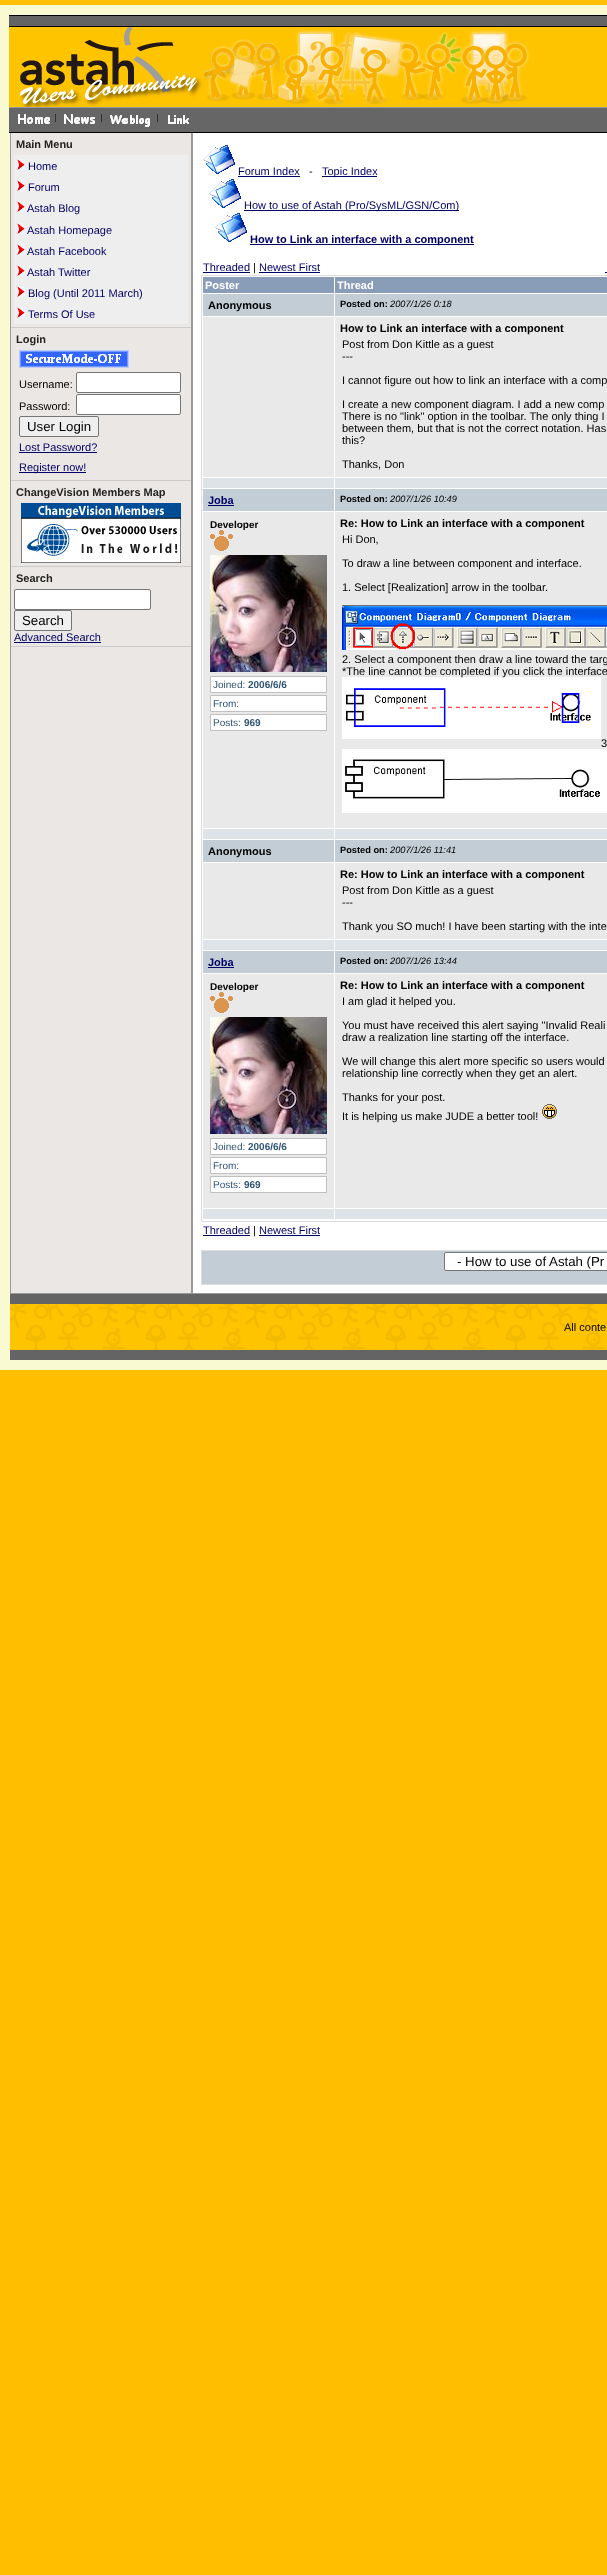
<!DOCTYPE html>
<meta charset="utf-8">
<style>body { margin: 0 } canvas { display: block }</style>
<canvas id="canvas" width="607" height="2575"></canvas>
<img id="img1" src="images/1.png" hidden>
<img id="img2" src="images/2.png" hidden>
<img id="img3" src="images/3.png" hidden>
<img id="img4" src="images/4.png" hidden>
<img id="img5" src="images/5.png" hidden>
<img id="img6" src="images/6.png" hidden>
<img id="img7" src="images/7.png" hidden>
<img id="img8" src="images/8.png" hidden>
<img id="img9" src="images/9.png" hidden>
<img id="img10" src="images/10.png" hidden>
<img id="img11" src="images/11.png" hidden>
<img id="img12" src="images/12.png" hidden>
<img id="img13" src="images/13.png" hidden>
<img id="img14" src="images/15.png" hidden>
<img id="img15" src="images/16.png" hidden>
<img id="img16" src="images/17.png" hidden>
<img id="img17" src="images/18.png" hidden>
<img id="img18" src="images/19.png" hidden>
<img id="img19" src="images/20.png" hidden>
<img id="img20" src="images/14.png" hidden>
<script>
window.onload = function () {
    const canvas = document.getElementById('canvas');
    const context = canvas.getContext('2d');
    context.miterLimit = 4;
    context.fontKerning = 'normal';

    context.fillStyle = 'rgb(255, 190, 0)';
    context.fillRect(0, 0, 607, 2575);
    context.fillStyle = 'rgb(250, 250, 210)';
    context.fillRect(0, 5, 607, 1365);
    context.fillStyle = 'rgb(100, 100, 100)';
    context.fillRect(9, 16, 598, 10);
    context.fillStyle = 'rgb(0, 0, 0)';
    context.fillRect(9, 15, 598, 1);
    context.fillRect(9, 26, 598, 1);
    context.fillStyle = 'rgb(255, 196, 0)';
    context.fillRect(9, 27, 598, 80);
    context.drawImage(document.getElementById('img1'), 19, 27, 183, 80);
    context.drawImage(document.getElementById('img2'), 204, 38, 76, 64);
    context.drawImage(document.getElementById('img3'), 280, 29, 114, 76);
    context.drawImage(document.getElementById('img4'), 394, 31, 68, 71);
    context.drawImage(document.getElementById('img5'), 462, 30, 68, 74);
    context.fillStyle = 'rgb(102, 102, 102)';
    context.fillRect(9, 108, 598, 24);
    context.fillStyle = 'rgb(153, 153, 153)';
    context.fillRect(9, 107, 598, 1);
    context.fillStyle = 'rgb(0, 0, 0)';
    context.fillRect(9, 132, 598, 1);
    context.drawImage(document.getElementById('img6'), 18, 114, 32, 10);
    context.fillStyle = 'rgb(51, 51, 51)';
    context.fillRect(55, 114, 1, 8);
    context.drawImage(document.getElementById('img7'), 64, 114, 31, 10);
    context.fillRect(101, 114, 1, 8);
    context.drawImage(document.getElementById('img8'), 110, 115, 40, 12);
    context.fillRect(157, 114, 1, 8);
    context.drawImage(document.getElementById('img9'), 168, 115, 21, 9);
    context.fillStyle = 'rgb(235, 231, 228)';
    context.fillRect(11, 133, 180, 1160);
    context.fillStyle = 'rgb(153, 153, 153)';
    context.fillRect(191, 133, 1, 1161);
    context.fillRect(10, 1293, 597, 1);
    context.fillRect(10, 133, 1, 1161);
    context.fillStyle = 'rgb(204, 204, 204)';
    context.fillRect(11, 327, 180, 1);
    context.fillStyle = 'rgb(238, 238, 238)';
    context.fillRect(14, 155, 174, 169);
    context.drawImage(document.getElementById('img10'), 17, 159, 8, 11);
    context.drawImage(document.getElementById('img10'), 17, 180, 8, 11);
    context.drawImage(document.getElementById('img10'), 17, 201, 8, 11);
    context.drawImage(document.getElementById('img10'), 17, 223, 8, 11);
    context.drawImage(document.getElementById('img10'), 17, 244, 8, 11);
    context.drawImage(document.getElementById('img10'), 17, 265, 8, 11);
    context.drawImage(document.getElementById('img10'), 17, 286, 8, 11);
    context.drawImage(document.getElementById('img10'), 17, 307, 8, 11);
    context.fillStyle = 'rgb(204, 204, 204)';
    context.fillRect(11, 480, 180, 1);
    context.drawImage(document.getElementById('img11'), 19, 350, 110, 18);
    context.fillStyle = 'rgb(255, 255, 255)';
    context.beginPath();
    context.roundRect(76.5, 372.5, 104, 20, 1.5);
    context.fill();
    context.strokeStyle = 'rgb(118, 118, 118)';
    context.stroke();
    context.beginPath();
    context.roundRect(76.5, 394.5, 104, 20, 1.5);
    context.fill();
    context.stroke();
    context.fillStyle = 'rgb(239, 239, 239)';
    context.beginPath();
    context.roundRect(19.5, 416.5, 79, 20, 1.5);
    context.fill();
    context.stroke();
    context.fillStyle = 'rgb(0, 0, 102)';
    context.fillRect(19, 452, 78, 1);
    context.fillRect(19, 472, 67, 1);
    context.fillStyle = 'rgb(204, 204, 204)';
    context.fillRect(11, 566, 180, 1);
    context.drawImage(document.getElementById('img12'), 21, 503, 160, 60);
    context.fillRect(11, 646, 180, 1);
    context.fillStyle = 'rgb(255, 255, 255)';
    context.beginPath();
    context.roundRect(14.5, 589.5, 136, 20, 1.5);
    context.fill();
    context.stroke();
    context.fillStyle = 'rgb(239, 239, 239)';
    context.beginPath();
    context.roundRect(14.5, 610.5, 57, 20, 1.5);
    context.fill();
    context.stroke();
    context.fillStyle = 'rgb(0, 0, 102)';
    context.fillRect(14, 642, 87, 1);
    context.fillStyle = 'rgb(255, 255, 255)';
    context.fillRect(193, 133, 414, 1160);
    context.fillStyle = 'rgb(153, 153, 153)';
    context.fillRect(192, 133, 1, 1161);
    context.drawImage(document.getElementById('img13'), 203, 145, 32, 29);
    context.fillStyle = 'rgb(0, 0, 102)';
    context.fillRect(238, 176, 62, 1);
    context.fillRect(322, 176, 55, 1);
    context.drawImage(document.getElementById('img13'), 209, 179, 32, 29);
    context.fillRect(244, 210, 215, 1);
    context.drawImage(document.getElementById('img13'), 215, 213, 32, 29);
    context.fillRect(250, 244, 224, 1);
    context.fillRect(203, 272, 47, 1);
    context.fillRect(259, 272, 61, 1);
    context.fillRect(605, 272, 2, 1);
    context.strokeStyle = 'rgb(221, 221, 221)';
    context.strokeRect(201.5, 275.5, 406, 946);
    context.fillStyle = 'rgb(137, 157, 184)';
    context.fillRect(203, 277, 131, 16);
    context.fillRect(335, 277, 272, 16);
    context.fillStyle = 'rgb(194, 205, 214)';
    context.fillRect(203, 294, 131, 22);
    context.fillRect(335, 294, 272, 22);
    context.fillStyle = 'rgb(233, 233, 233)';
    context.fillRect(203, 317, 131, 160);
    context.fillRect(335, 317, 272, 160);
    context.fillStyle = 'rgb(222, 227, 231)';
    context.fillRect(203, 478, 131, 10);
    context.fillRect(335, 478, 272, 10);
    context.fillStyle = 'rgb(194, 205, 214)';
    context.fillRect(203, 489, 131, 22);
    context.fillStyle = 'rgb(0, 0, 102)';
    context.fillRect(208, 505, 26, 1);
    context.fillStyle = 'rgb(194, 205, 214)';
    context.fillRect(335, 489, 272, 22);
    context.fillStyle = 'rgb(233, 233, 233)';
    context.fillRect(203, 512, 131, 316);
    context.drawImage(document.getElementById('img14'), 210, 555, 117, 117);
    context.fillStyle = 'rgb(255, 255, 255)';
    context.beginPath();
    context.rect(210.5, 676.5, 116, 16);
    context.fill();
    context.strokeStyle = 'rgb(192, 192, 192)';
    context.stroke();
    context.beginPath();
    context.rect(210.5, 695.5, 116, 16);
    context.fill();
    context.stroke();
    context.beginPath();
    context.rect(210.5, 714.5, 116, 16);
    context.fill();
    context.stroke();
    context.fillStyle = 'rgb(233, 233, 233)';
    context.fillRect(335, 512, 272, 316);
    context.drawImage(document.getElementById('img15'), 342, 605, 265, 45);
    context.drawImage(document.getElementById('img16'), 342, 677, 259, 62);
    context.drawImage(document.getElementById('img17'), 342, 749, 265, 64);
    context.fillStyle = 'rgb(222, 227, 231)';
    context.fillRect(203, 829, 131, 10);
    context.fillRect(335, 829, 272, 10);
    context.fillStyle = 'rgb(194, 205, 214)';
    context.fillRect(203, 840, 131, 22);
    context.fillRect(335, 840, 272, 22);
    context.fillStyle = 'rgb(233, 233, 233)';
    context.fillRect(203, 863, 131, 76);
    context.fillRect(335, 863, 272, 76);
    context.fillStyle = 'rgb(222, 227, 231)';
    context.fillRect(203, 940, 131, 10);
    context.fillRect(335, 940, 272, 10);
    context.fillStyle = 'rgb(194, 205, 214)';
    context.fillRect(203, 951, 131, 22);
    context.fillStyle = 'rgb(0, 0, 102)';
    context.fillRect(208, 967, 26, 1);
    context.fillStyle = 'rgb(194, 205, 214)';
    context.fillRect(335, 951, 272, 22);
    context.fillStyle = 'rgb(233, 233, 233)';
    context.fillRect(203, 974, 131, 234);
    context.drawImage(document.getElementById('img14'), 210, 1017, 117, 117);
    context.fillStyle = 'rgb(255, 255, 255)';
    context.beginPath();
    context.rect(210.5, 1138.5, 116, 16);
    context.fill();
    context.stroke();
    context.beginPath();
    context.rect(210.5, 1157.5, 116, 16);
    context.fill();
    context.stroke();
    context.beginPath();
    context.rect(210.5, 1176.5, 116, 16);
    context.fill();
    context.stroke();
    context.fillStyle = 'rgb(233, 233, 233)';
    context.fillRect(335, 974, 272, 234);
    context.drawImage(document.getElementById('img18'), 542, 1104, 15, 15);
    context.fillStyle = 'rgb(222, 227, 231)';
    context.fillRect(203, 1209, 131, 10);
    context.fillRect(335, 1209, 272, 10);
    context.fillStyle = 'rgb(0, 0, 102)';
    context.fillRect(203, 1235, 47, 1);
    context.fillRect(259, 1235, 61, 1);
    context.strokeStyle = 'rgb(221, 221, 221)';
    context.strokeRect(201.5, 1250.5, 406, 34);
    context.fillStyle = 'rgb(194, 205, 214)';
    context.fillRect(202, 1251, 405, 33);
    context.fillStyle = 'rgb(255, 255, 255)';
    context.beginPath();
    context.roundRect(444.5, 1252.5, 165, 18, 1.5);
    context.fill();
    context.strokeStyle = 'rgb(118, 118, 118)';
    context.stroke();
    context.fillStyle = 'rgb(100, 100, 100)';
    context.fillRect(10, 1294, 597, 10);
    context.drawImage(document.getElementById('img19'), 10, 1304, 597, 46);
    context.fillRect(10, 1350, 597, 10);
    context.font = 'bold 11px Liberation Sans';
    context.fillStyle = 'rgb(34, 34, 34)';
    context.fillText('Main Menu', 16, 148);
    context.font = '11px Liberation Sans';
    context.fillStyle = 'rgb(0, 0, 102)';
    context.fillText('Home', 28, 170);
    context.fillText('Forum', 28, 191);
    context.fillText('Astah Blog', 27, 212);
    context.fillText('Astah Homepage', 27, 234);
    context.fillText('Astah Facebook', 27, 255);
    context.fillText('Astah Twitter', 27, 276);
    context.fillText('Blog (Until 2011 March)', 28, 297);
    context.fillText('Terms Of Use', 28, 318);
    context.font = 'bold 11px Liberation Sans';
    context.fillStyle = 'rgb(34, 34, 34)';
    context.fillText('Login', 16, 343);
    context.font = '11px Liberation Sans';
    context.fillStyle = 'rgb(0, 0, 0)';
    context.fillText('Username:', 19, 388);
    context.fillText('Password:', 19, 410);
    context.font = '13.25px Liberation Sans';
    context.fillText('User Login', 27, 431);
    context.font = '11px Liberation Sans';
    context.fillStyle = 'rgb(0, 0, 102)';
    context.fillText('Lost Password?', 19, 451);
    context.fillText('Register now!', 19, 471);
    context.font = 'bold 11px Liberation Sans';
    context.fillStyle = 'rgb(34, 34, 34)';
    context.fillText('ChangeVision Members Map', 16, 496);
    context.fillText('Search', 16, 582);
    context.font = '13.25px Liberation Sans';
    context.fillStyle = 'rgb(0, 0, 0)';
    context.fillText('Search', 22, 625);
    context.font = '11px Liberation Sans';
    context.fillStyle = 'rgb(0, 0, 102)';
    context.fillText('Advanced Search', 14, 641);
    context.fillText('Forum Index', 238, 175);
    context.fillStyle = 'rgb(0, 0, 0)';
    context.fillText('-', 309, 175);
    context.fillStyle = 'rgb(0, 0, 102)';
    context.fillText('Topic Index', 322, 175);
    context.fillText('How to use of Astah (Pro/SysML/GSN/Com)', 244, 209);
    context.font = 'bold 11px Liberation Sans';
    context.fillText('How to Link an interface with a component', 250, 243);
    context.font = '11px Liberation Sans';
    context.fillText('Threaded', 203, 271);
    context.fillStyle = 'rgb(0, 0, 0)';
    context.fillText('|', 253, 271);
    context.fillStyle = 'rgb(0, 0, 102)';
    context.fillText('Newest First', 259, 271);
    context.font = 'bold 11px Liberation Sans';
    context.fillStyle = 'rgb(255, 255, 255)';
    context.fillText('Poster', 205, 289);
    context.fillText('Thread', 337, 289);
    context.fillStyle = 'rgb(0, 0, 0)';
    context.fillText('Anonymous', 208, 309);
    context.font = 'bold 9.25px Liberation Sans';
    context.fillText('Posted on:', 340, 307);
    context.font = 'italic 9.25px Liberation Sans';
    context.fillText('2007/1/26 0:18', 390, 307);
    context.font = 'bold 11px Liberation Sans';
    context.fillText('How to Link an interface with a component', 340, 332);
    context.font = '11px Liberation Sans';
    context.fillText('Post from Don Kittle as a guest', 342, 348);
    context.fillText('---', 342, 360);
    context.fillText('I cannot figure out how to link an interface with a comp', 342, 384);
    context.fillText('I create a new component diagram. I add a new comp', 342, 408);
    context.fillText('There is no "link" option in the toolbar. The only thing I', 342, 420);
    context.fillText('between them, but that is not the correct notation. Has', 342, 432);
    context.fillText('this?', 342, 444);
    context.fillText('Thanks, Don', 342, 468);
    context.font = 'bold 11px Liberation Sans';
    context.fillStyle = 'rgb(0, 0, 102)';
    context.fillText('Joba', 208, 504);
    context.font = 'bold 9.25px Liberation Sans';
    context.fillStyle = 'rgb(0, 0, 0)';
    context.fillText('Posted on:', 340, 502);
    context.font = 'italic 9.25px Liberation Sans';
    context.fillText('2007/1/26 10:49', 390, 502);
    context.font = 'bold 10px Liberation Sans';
    context.fillText('Developer', 210, 528);
    context.drawImage(document.getElementById('img20'), 210, 530, 23, 21);
    context.font = '10px Liberation Sans';
    context.fillStyle = 'rgb(47, 83, 118)';
    context.fillText('Joined:', 213, 688);
    context.font = 'bold 10px Liberation Sans';
    context.fillText('2006/6/6', 248, 688);
    context.font = '10px Liberation Sans';
    context.fillText('From:', 213, 707);
    context.fillText('Posts:', 213, 726);
    context.font = 'bold 10px Liberation Sans';
    context.fillText('969', 244, 726);
    context.font = 'bold 11px Liberation Sans';
    context.fillStyle = 'rgb(0, 0, 0)';
    context.fillText('Re: How to Link an interface with a component', 340, 527);
    context.font = '11px Liberation Sans';
    context.fillText('Hi Don,', 342, 543);
    context.fillText('To draw a line between component and interface.', 342, 567);
    context.fillText('1. Select [Realization] arrow in the toolbar.', 342, 591);
    context.fillText('2. Select a component then draw a line toward the targ', 342, 663);
    context.fillText('*The line cannot be completed if you click the interface', 342, 675);
    context.fillText('3', 601, 747);
    context.font = 'bold 11px Liberation Sans';
    context.fillText('Anonymous', 208, 855);
    context.font = 'bold 9.25px Liberation Sans';
    context.fillText('Posted on:', 340, 853);
    context.font = 'italic 9.25px Liberation Sans';
    context.fillText('2007/1/26 11:41', 390, 853);
    context.font = 'bold 11px Liberation Sans';
    context.fillText('Re: How to Link an interface with a component', 340, 878);
    context.font = '11px Liberation Sans';
    context.fillText('Post from Don Kittle as a guest', 342, 894);
    context.fillText('---', 342, 906);
    context.fillText('Thank you SO much! I have been starting with the inte', 342, 930);
    context.font = 'bold 11px Liberation Sans';
    context.fillStyle = 'rgb(0, 0, 102)';
    context.fillText('Joba', 208, 966);
    context.font = 'bold 9.25px Liberation Sans';
    context.fillStyle = 'rgb(0, 0, 0)';
    context.fillText('Posted on:', 340, 964);
    context.font = 'italic 9.25px Liberation Sans';
    context.fillText('2007/1/26 13:44', 390, 964);
    context.font = 'bold 10px Liberation Sans';
    context.fillText('Developer', 210, 990);
    context.drawImage(document.getElementById('img20'), 210, 992, 23, 21);
    context.font = '10px Liberation Sans';
    context.fillStyle = 'rgb(47, 83, 118)';
    context.fillText('Joined:', 213, 1150);
    context.font = 'bold 10px Liberation Sans';
    context.fillText('2006/6/6', 248, 1150);
    context.font = '10px Liberation Sans';
    context.fillText('From:', 213, 1169);
    context.fillText('Posts:', 213, 1188);
    context.font = 'bold 10px Liberation Sans';
    context.fillText('969', 244, 1188);
    context.font = 'bold 11px Liberation Sans';
    context.fillStyle = 'rgb(0, 0, 0)';
    context.fillText('Re: How to Link an interface with a component', 340, 989);
    context.font = '11px Liberation Sans';
    context.fillText('I am glad it helped you.', 342, 1005);
    context.fillText('You must have received this alert saying "Invalid Reali', 342, 1029);
    context.fillText('draw a realization line starting off the interface.', 342, 1041);
    context.fillText('We will change this alert more specific so users would', 342, 1065);
    context.fillText('relationship line correctly when they get an alert.', 342, 1077);
    context.fillText('Thanks for your post.', 342, 1101);
    context.fillText('It is helping us make JUDE a better tool!', 342, 1120);
    context.fillStyle = 'rgb(0, 0, 102)';
    context.fillText('Threaded', 203, 1234);
    context.fillStyle = 'rgb(0, 0, 0)';
    context.fillText('|', 253, 1234);
    context.fillStyle = 'rgb(0, 0, 102)';
    context.fillText('Newest First', 259, 1234);
    context.font = '13.25px Liberation Sans';
    context.fillStyle = 'rgb(0, 0, 0)';
    context.fillText('- How to use of Astah (Pr', 457, 1266);
    context.font = '11px Liberation Sans';
    context.fillText('All conte', 564, 1331);
};
</script>
